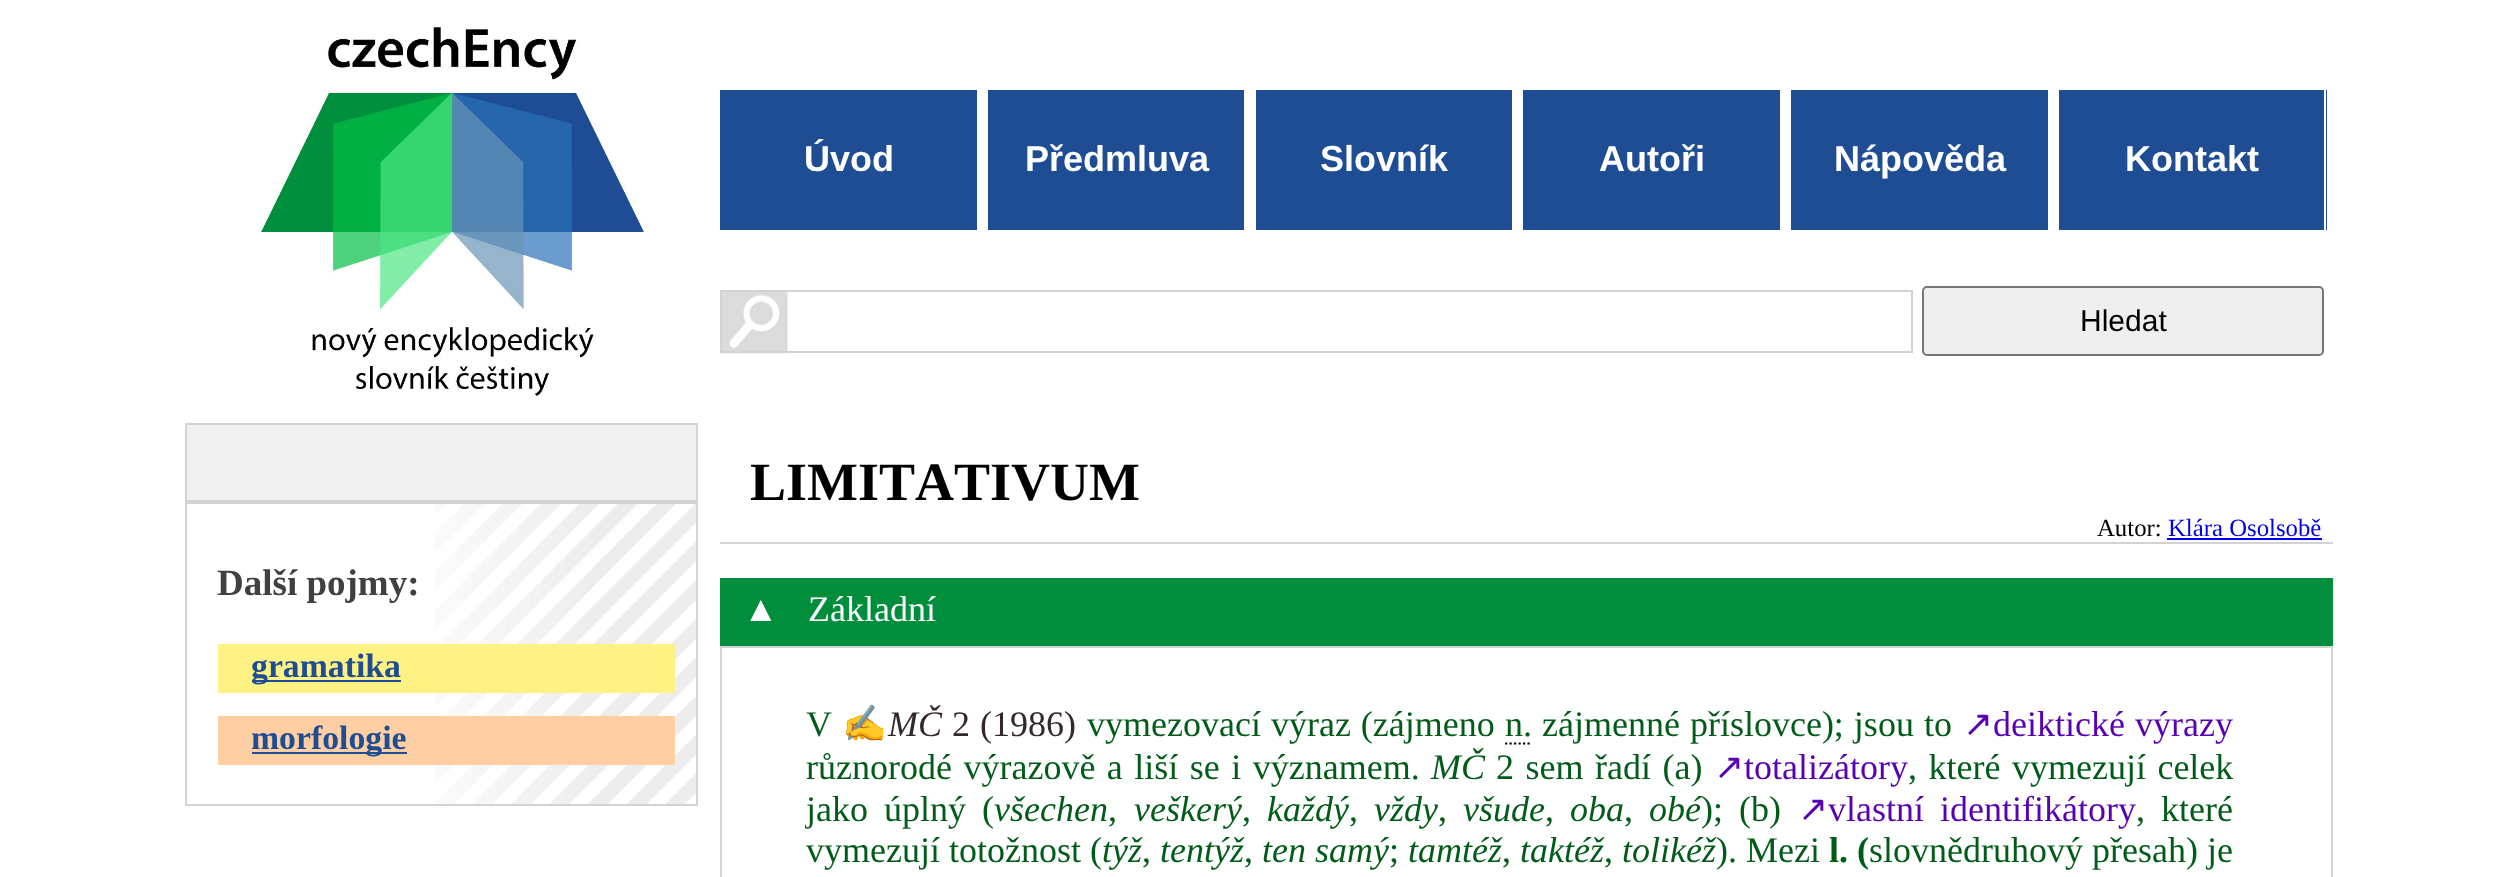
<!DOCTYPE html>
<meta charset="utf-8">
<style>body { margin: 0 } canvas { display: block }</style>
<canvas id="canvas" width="2514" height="877"></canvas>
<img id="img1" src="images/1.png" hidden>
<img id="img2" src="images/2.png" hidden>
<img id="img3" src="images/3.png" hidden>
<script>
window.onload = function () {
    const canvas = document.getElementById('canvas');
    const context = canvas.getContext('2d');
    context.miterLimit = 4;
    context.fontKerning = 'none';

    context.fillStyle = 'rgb(255, 255, 255)';
    context.fillRect(0, 0, 2514, 877);
    context.drawImage(document.getElementById('img1'), 261, 25, 383, 371);
    context.fillStyle = 'rgb(30, 77, 148)';
    context.fillRect(720, 90, 257, 140);
    context.fillRect(988, 90, 256, 140);
    context.fillRect(1256, 90, 256, 140);
    context.fillRect(1523, 90, 257, 140);
    context.fillRect(1791, 90, 257, 140);
    context.fillRect(2059, 90, 268, 140);
    context.fillStyle = 'rgb(255, 255, 255)';
    context.fillRect(2324, 90, 2, 140);
    context.drawImage(document.getElementById('img2'), 720, 292, 68, 62);
    context.strokeStyle = 'rgb(211, 211, 211)';
    context.lineWidth = 2;
    context.strokeRect(721, 291, 1191, 61);
    context.fillStyle = 'rgb(239, 239, 239)';
    context.beginPath();
    context.roundRect(1923, 287, 400, 68, 4);
    context.fill();
    context.strokeStyle = 'rgb(118, 118, 118)';
    context.stroke();
    context.drawImage(document.getElementById('img3'), 435, 504, 261, 300);
    context.fillStyle = 'rgb(240, 240, 240)';
    context.beginPath();
    context.rect(186, 424, 511, 77);
    context.fill();
    context.strokeStyle = 'rgb(211, 211, 211)';
    context.stroke();
    context.strokeRect(186, 503, 511, 302);
    context.fillStyle = 'rgb(255, 242, 132)';
    context.fillRect(218, 644, 457, 49);
    context.fillStyle = 'rgb(30, 77, 148)';
    context.fillRect(252, 680, 149, 2);
    context.fillStyle = 'rgb(255, 206, 162)';
    context.fillRect(218, 716, 457, 49);
    context.fillStyle = 'rgb(30, 77, 148)';
    context.fillRect(252, 752, 155, 2);
    context.fillStyle = 'rgb(211, 211, 211)';
    context.fillRect(720, 542, 1613, 2);
    context.fillStyle = 'rgb(0, 0, 238)';
    context.fillRect(2167, 538, 155, 2);
    context.fillStyle = 'rgb(0, 142, 61)';
    context.fillRect(720, 578, 1613, 68);
    context.strokeRect(721, 647, 1611, 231);
    context.beginPath();
    context.moveTo(1505, 743.5);
    context.lineTo(1532, 743.5);
    context.strokeStyle = 'rgb(0, 0, 0)';
    context.lineWidth = 2.2;
    context.setLineDash([2.25, 2.25]);
    context.stroke();
    context.font = 'bold 36px Liberation Sans';
    context.fillStyle = 'rgb(255, 255, 255)';
    context.fillText('Úvod', 804, 171);
    context.fillText('Předmluva', 1025, 171);
    context.fillText('Slovník', 1320, 171);
    context.fillText('Autoři', 1599, 171);
    context.fillText('Nápověda', 1834, 171);
    context.fillText('Kontakt', 2125, 171);
    context.font = '30px Liberation Sans';
    context.fillStyle = 'rgb(0, 0, 0)';
    context.fillText('Hledat', 2080, 331);
    context.font = 'bold 37px Liberation Serif';
    context.fillStyle = 'rgb(64, 64, 64)';
    context.fillText('Další pojmy:', 217, 595);
    context.font = 'bold 33.75px Liberation Serif';
    context.fillStyle = 'rgb(30, 77, 148)';
    context.fillText('gramatika', 251, 677);
    context.fillText('morfologie', 251, 749);
    context.font = 'bold 54px Liberation Serif';
    context.fillStyle = 'rgb(0, 0, 0)';
    context.fillText('LIMITATIVUM', 750, 500);
    context.font = '24.75px Liberation Serif';
    context.fillText('Autor:', 2097, 536);
    context.fillStyle = 'rgb(0, 0, 238)';
    context.fillText('Klára Osolsobě', 2168, 536);
    context.font = '36px Liberation Serif';
    context.fillStyle = 'rgb(255, 255, 255)';
    context.fillText('▲', 743, 621);
    context.fillText('Základní', 808, 621);
    context.fillStyle = 'rgb(0, 92, 24)';
    context.fillText('V', 806, 736);
    context.font = '36px Noto Color Emoji';
    context.fillStyle = 'rgb(53, 40, 40)';
    context.fillText('✍', 842, 736);
    context.font = 'italic 36px Liberation Serif';
    context.fillText('MČ', 888, 736);
    context.wordSpacing = '1px';
    context.font = '36px Liberation Serif';
    context.fillText('2 (1986)', 952, 736);
    context.fillStyle = 'rgb(0, 92, 24)';
    context.fillText('vymezovací výraz (zájmeno', 1087, 736);
    context.wordSpacing = '0px';
    context.fillText('n.', 1505, 736);
    context.wordSpacing = '1px';
    context.fillText('zájmenné příslovce); jsou to', 1542, 736);
    context.wordSpacing = '0px';
    context.font = '36px DejaVu Sans';
    context.fillStyle = 'rgb(88, 0, 179)';
    context.fillText('↗', 1963, 736);
    context.wordSpacing = '1px';
    context.font = '36px Liberation Serif';
    context.fillText('deiktické výrazy', 1993, 736);
    context.wordSpacing = '2.5px';
    context.fillStyle = 'rgb(0, 92, 24)';
    context.fillText('různorodé výrazově a liší se i významem.', 806, 779);
    context.wordSpacing = '0px';
    context.font = 'italic 36px Liberation Serif';
    context.fillText('MČ', 1431, 779);
    context.wordSpacing = '2.5px';
    context.font = '36px Liberation Serif';
    context.fillText('2 sem řadí (a)', 1496, 779);
    context.wordSpacing = '0px';
    context.font = '36px DejaVu Sans';
    context.fillStyle = 'rgb(88, 0, 179)';
    context.fillText('↗', 1714, 779);
    context.font = '36px Liberation Serif';
    context.fillText('totalizátory', 1744, 779);
    context.wordSpacing = '2.5px';
    context.fillStyle = 'rgb(0, 92, 24)';
    context.fillText(', které vymezují celek', 1908, 779);
    context.wordSpacing = '7px';
    context.fillText('jako úplný (', 806, 821);
    context.wordSpacing = '0px';
    context.font = 'italic 36px Liberation Serif';
    context.fillText('všechen', 994, 821);
    context.fillText('veškerý', 1134, 821);
    context.fillText('každý', 1267, 821);
    context.fillText('vždy', 1374, 821);
    context.fillText('všude', 1463, 821);
    context.fillText('oba', 1570, 821);
    context.fillText('obé', 1649, 821);
    context.wordSpacing = '7px';
    context.font = '36px Liberation Serif';
    context.fillText('); (b)', 1701, 821);
    context.wordSpacing = '0px';
    context.font = '36px DejaVu Sans';
    context.fillStyle = 'rgb(88, 0, 179)';
    context.fillText('↗', 1798, 821);
    context.wordSpacing = '7px';
    context.font = '36px Liberation Serif';
    context.fillText('vlastní identifikátory', 1828, 821);
    context.fillStyle = 'rgb(0, 92, 24)';
    context.fillText(', které', 2136, 821);
    context.wordSpacing = '0px';
    context.fillText(',', 1108, 821);
    context.fillText(',', 1242, 821);
    context.fillText(',', 1349, 821);
    context.fillText(',', 1438, 821);
    context.fillText(',', 1545, 821);
    context.fillText(',', 1624, 821);
    context.fillText('vymezují totožnost (', 806, 862);
    context.font = 'italic 36px Liberation Serif';
    context.fillText('týž', 1102, 862);
    context.font = '36px Liberation Serif';
    context.fillText(',', 1142, 862);
    context.font = 'italic 36px Liberation Serif';
    context.fillText('tentýž', 1160, 862);
    context.font = '36px Liberation Serif';
    context.fillText(',', 1244, 862);
    context.font = 'italic 36px Liberation Serif';
    context.fillText('ten samý', 1262, 862);
    context.font = '36px Liberation Serif';
    context.fillText(';', 1389, 862);
    context.font = 'italic 36px Liberation Serif';
    context.fillText('tamtéž', 1408, 862);
    context.font = '36px Liberation Serif';
    context.fillText(',', 1502, 862);
    context.font = 'italic 36px Liberation Serif';
    context.fillText('taktéž', 1520, 862);
    context.font = '36px Liberation Serif';
    context.fillText(',', 1604, 862);
    context.font = 'italic 36px Liberation Serif';
    context.fillText('tolikéž', 1622, 862);
    context.font = '36px Liberation Serif';
    context.fillText('). Mezi', 1716, 862);
    context.font = 'bold 36px Liberation Serif';
    context.fillText('l. (', 1829, 862);
    context.font = '36px Liberation Serif';
    context.fillText('slovnědruhový přesah) je', 1869, 862);
};
</script>
